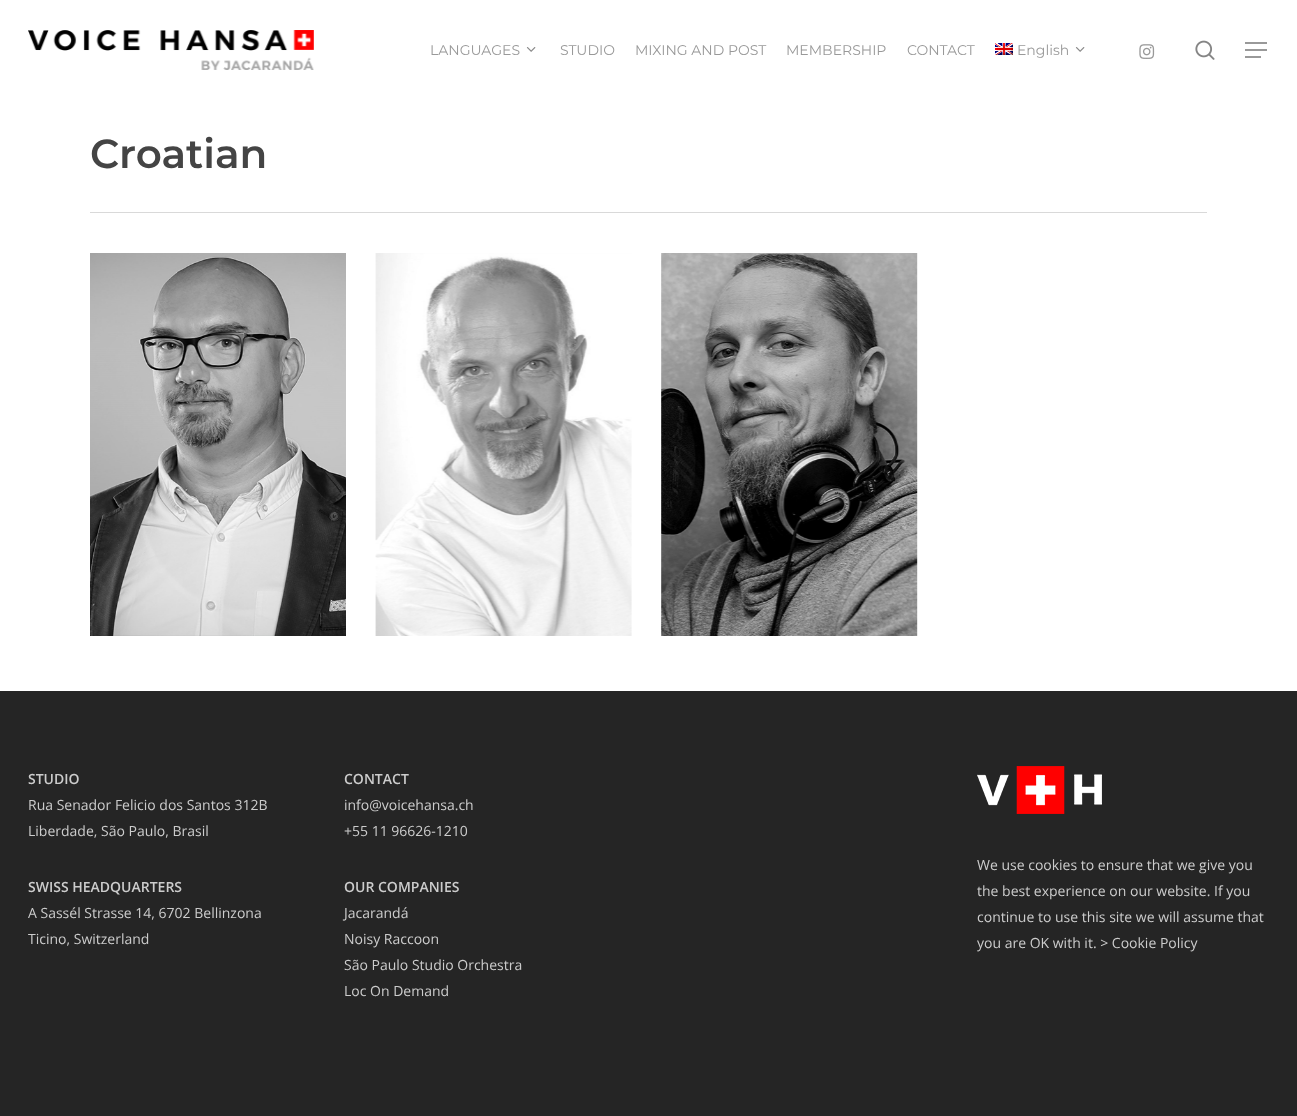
<!DOCTYPE html>
<meta charset="utf-8">
<style>body { margin: 0 } canvas { display: block }</style>
<canvas id="canvas" width="1297" height="1116"></canvas>
<img id="img1" src="images/1.png" hidden>
<img id="img2" src="images/2.png" hidden>
<img id="img3" src="images/3.png" hidden>
<img id="img4" src="images/4.png" hidden>
<img id="img5" src="images/5.png" hidden>
<img id="img6" src="images/6.png" hidden>
<img id="img7" src="images/7.png" hidden>
<img id="img8" src="images/8.png" hidden>
<img id="img9" src="images/9.png" hidden>
<script>
window.onload = function () {
    const canvas = document.getElementById('canvas');
    const context = canvas.getContext('2d');
    context.miterLimit = 4;
    context.fontKerning = 'normal';

    context.fillStyle = 'rgb(255, 255, 255)';
    context.fillRect(0, 0, 1297, 1116);
    context.drawImage(document.getElementById('img1'), 28, 30, 286, 40);
    context.drawImage(document.getElementById('img2'), 526, 47, 10, 5);
    context.drawImage(document.getElementById('img3'), 995, 43, 18, 12);
    context.drawImage(document.getElementById('img2'), 1075, 47, 10, 5);
    context.drawImage(document.getElementById('img4'), 1139, 44, 16, 15);
    context.drawImage(document.getElementById('img5'), 1195, 40, 20, 20);
    context.fillStyle = 'rgb(153, 153, 153)';
    context.fillRect(1245, 42, 22, 2);
    context.fillRect(1245, 56, 16, 2);
    context.fillRect(1245, 49, 22, 2);
    context.fillStyle = 'rgb(217, 217, 217)';
    context.fillRect(90, 212, 1117, 1);
    context.drawImage(document.getElementById('img6'), 90, 253, 256, 383);
    context.drawImage(document.getElementById('img7'), 375, 253, 257, 383);
    context.drawImage(document.getElementById('img8'), 661, 253, 257, 383);
    context.fillStyle = 'rgb(37, 37, 37)';
    context.fillRect(0, 691, 1297, 425);
    context.drawImage(document.getElementById('img9'), 977, 766, 125, 48);
    context.font = '14px Montserrat';
    context.fillStyle = 'rgb(153, 153, 153)';
    context.fillText('LANGUAGES', 430, 55);
    context.fillText('STUDIO', 560, 55);
    context.fillText('MIXING AND POST', 635, 55);
    context.fillText('MEMBERSHIP', 786, 55);
    context.fillText('CONTACT', 907, 55);
    context.fillText('English', 1017, 55);
    context.font = '600 40.5px Montserrat';
    context.fillStyle = 'rgb(68, 68, 68)';
    context.fillText('Croatian', 90, 168);
    context.font = '500 19px Montserrat';
    context.fillStyle = 'rgb(142, 142, 142)';
    context.fillText('r', 776, 431);
    context.fillText('.', 824, 431);
    context.font = '600 14px Open Sans';
    context.fillStyle = 'rgb(204, 204, 204)';
    context.fillText('STUDIO', 28, 784);
    context.font = '14px Open Sans';
    context.fillText('Rua Senador Felicio dos Santos 312B', 28, 810);
    context.fillText('Liberdade, São Paulo, Brasil', 28, 836);
    context.font = '600 14px Open Sans';
    context.fillText('SWISS HEADQUARTERS', 28, 892);
    context.font = '14px Open Sans';
    context.fillText('A Sassél Strasse 14, 6702 Bellinzona', 28, 918);
    context.fillText('Ticino, Switzerland', 28, 944);
    context.font = '600 14px Open Sans';
    context.fillText('CONTACT', 344, 784);
    context.font = '14px Open Sans';
    context.fillText('info@voicehansa.ch', 344, 810);
    context.fillText('+55 11 96626-1210', 344, 836);
    context.font = '600 14px Open Sans';
    context.fillText('OUR COMPANIES', 344, 892);
    context.font = '14px Open Sans';
    context.fillText('Jacarandá', 344, 918);
    context.fillText('Noisy Raccoon', 344, 944);
    context.fillText('São Paulo Studio Orchestra', 344, 970);
    context.fillText('Loc On Demand', 344, 996);
    context.fillText('We use cookies to ensure that we give you', 977, 870);
    context.fillText('the best experience on our website. If you', 977, 896);
    context.fillText('continue to use this site we will assume that', 977, 922);
    context.fillText('you are OK with it. > Cookie Policy', 977, 948);
};
</script>
